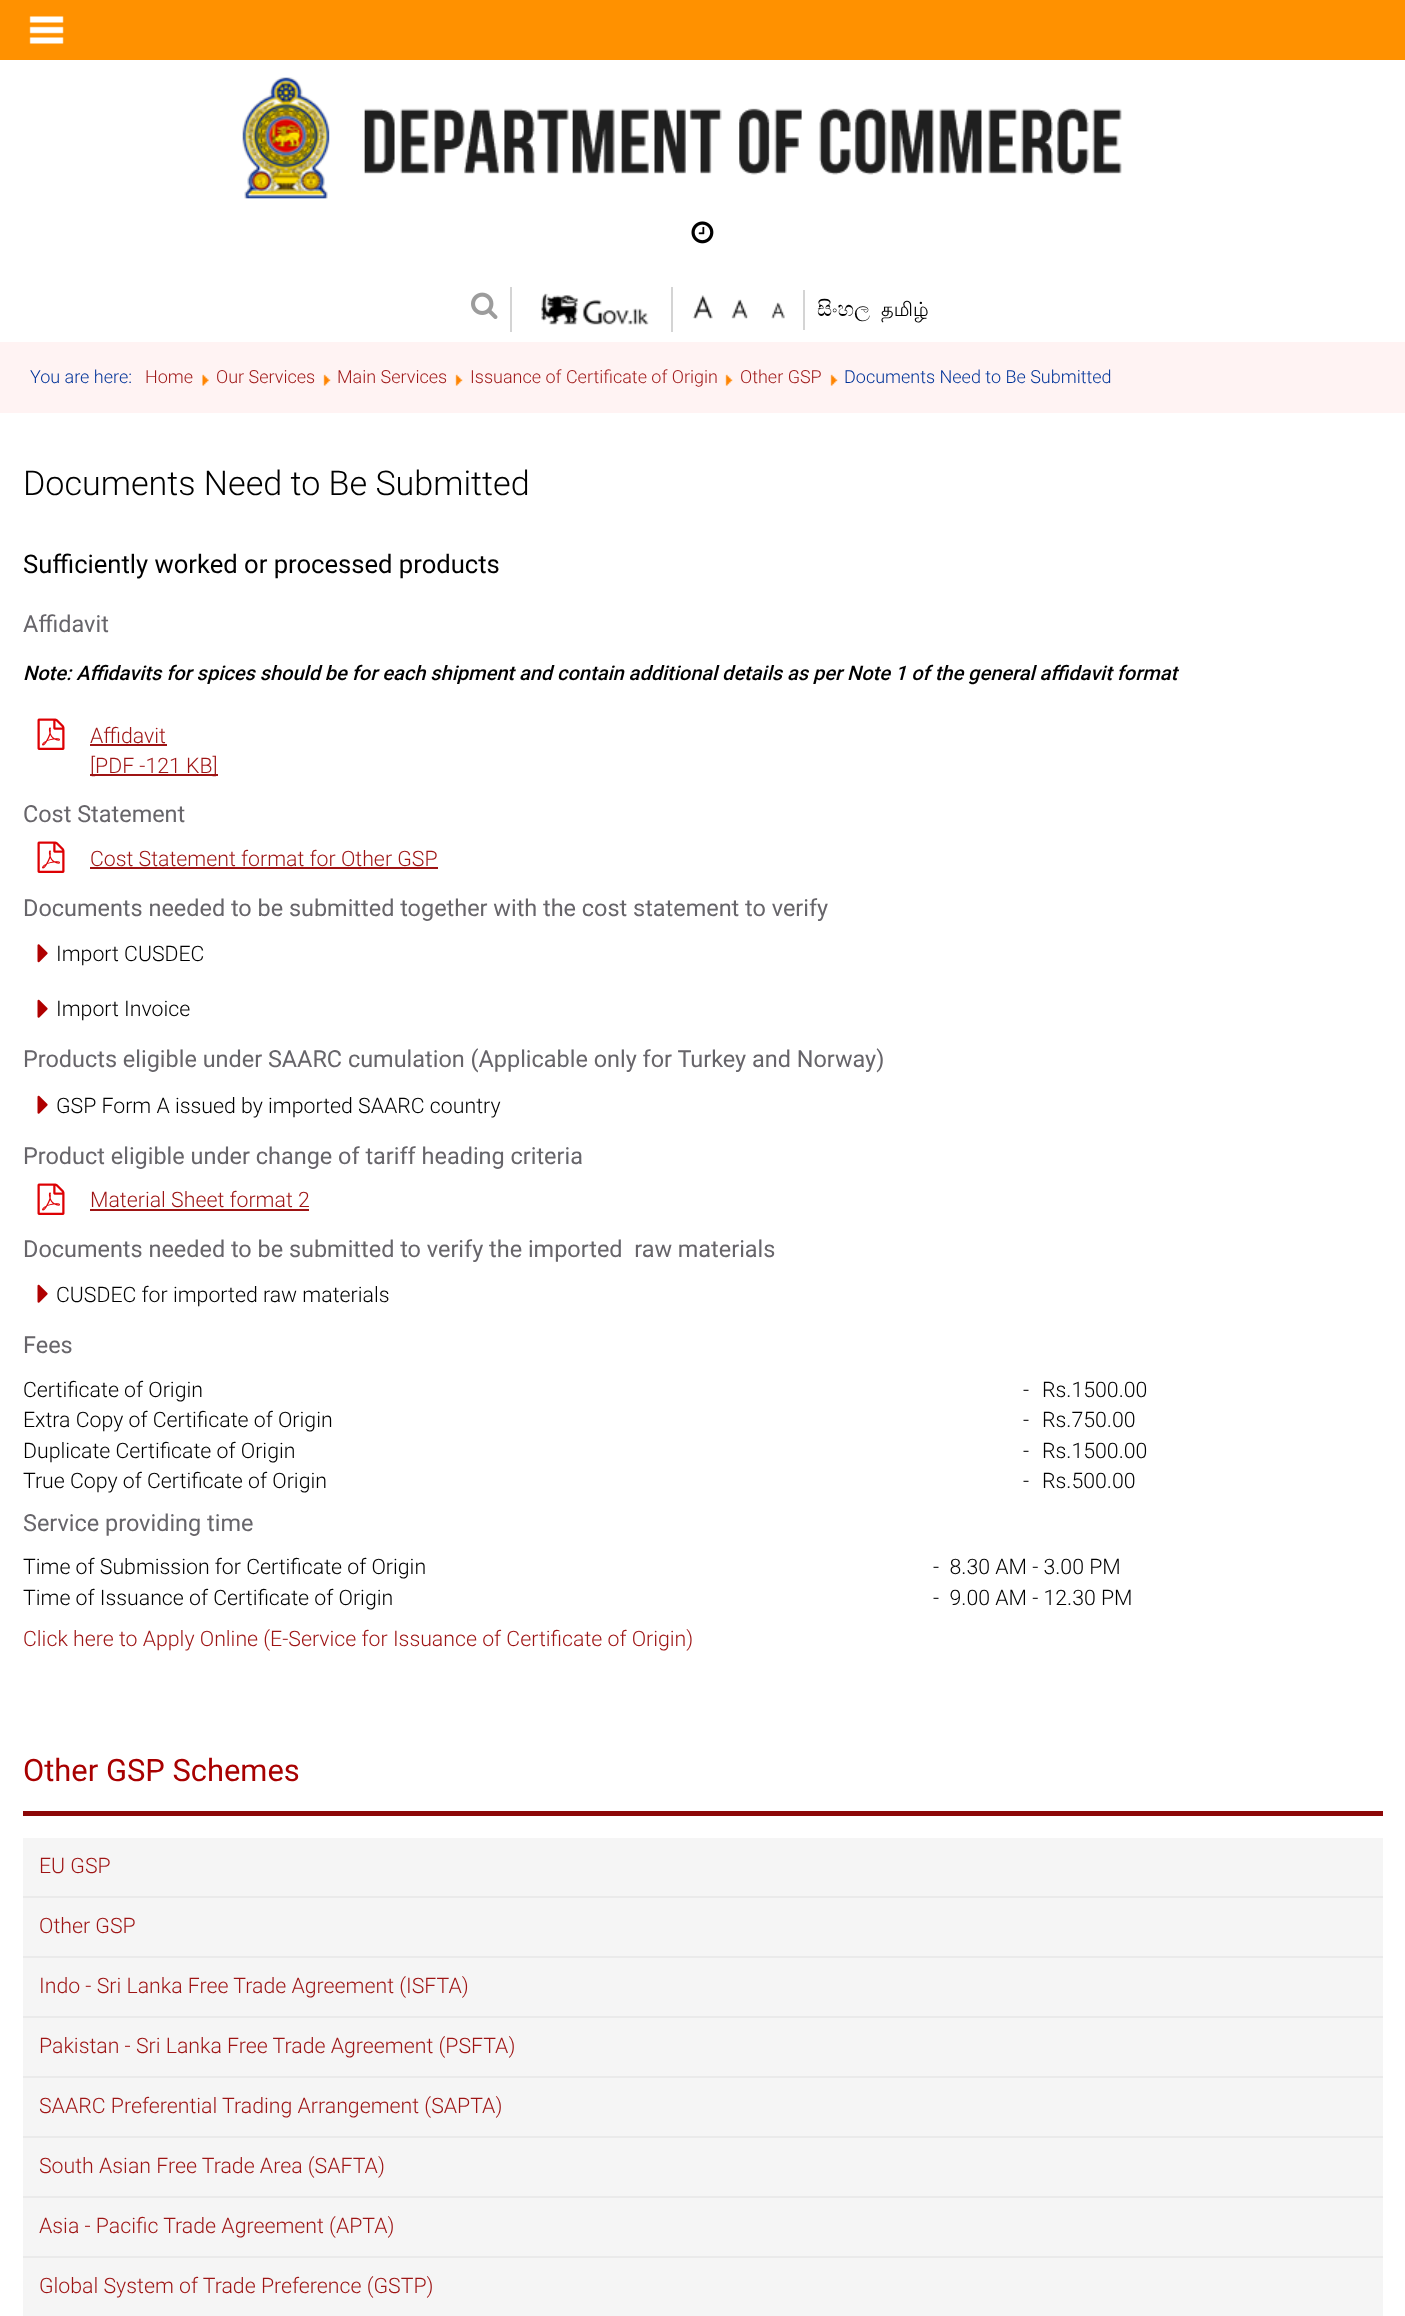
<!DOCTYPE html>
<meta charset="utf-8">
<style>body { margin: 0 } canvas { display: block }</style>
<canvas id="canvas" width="1405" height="2316"></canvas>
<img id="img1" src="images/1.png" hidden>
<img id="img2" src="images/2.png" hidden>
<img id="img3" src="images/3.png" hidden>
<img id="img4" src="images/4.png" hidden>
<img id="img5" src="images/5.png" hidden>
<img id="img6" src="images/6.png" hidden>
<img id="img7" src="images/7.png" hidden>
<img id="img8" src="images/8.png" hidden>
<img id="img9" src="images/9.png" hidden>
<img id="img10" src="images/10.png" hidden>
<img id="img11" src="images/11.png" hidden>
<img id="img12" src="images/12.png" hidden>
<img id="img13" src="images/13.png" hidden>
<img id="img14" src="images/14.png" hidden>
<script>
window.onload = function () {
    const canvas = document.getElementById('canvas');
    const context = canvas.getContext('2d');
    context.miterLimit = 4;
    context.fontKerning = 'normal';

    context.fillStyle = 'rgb(255, 255, 255)';
    context.fillRect(0, 0, 1405, 2316);
    context.fillStyle = 'rgb(255, 145, 0)';
    context.fillRect(0, 0, 1405, 60);
    context.drawImage(document.getElementById('img1'), 29, 16, 35, 28);
    context.drawImage(document.getElementById('img2'), 242, 77, 880, 122);
    context.drawImage(document.getElementById('img3'), 691, 221, 23, 23);
    context.drawImage(document.getElementById('img4'), 471, 292, 27, 27);
    context.fillStyle = 'rgb(212, 212, 212)';
    context.fillRect(671, 287, 2, 45);
    context.fillRect(510, 287, 2, 45);
    context.drawImage(document.getElementById('img5'), 541, 293, 108, 32);
    context.drawImage(document.getElementById('img6'), 692, 295, 21, 24);
    context.drawImage(document.getElementById('img7'), 731, 299, 17, 20);
    context.drawImage(document.getElementById('img8'), 771, 302, 14, 17);
    context.fillRect(803, 290, 2, 40);
    context.fillStyle = 'rgb(255, 243, 243)';
    context.fillRect(0, 342, 1405, 71);
    context.drawImage(document.getElementById('img9'), 202, 374, 7, 12);
    context.drawImage(document.getElementById('img10'), 323, 374, 8, 12);
    context.drawImage(document.getElementById('img10'), 455, 374, 8, 12);
    context.drawImage(document.getElementById('img11'), 725, 374, 8, 12);
    context.drawImage(document.getElementById('img10'), 830, 374, 8, 12);
    context.drawImage(document.getElementById('img12'), 37, 718, 28, 32);
    context.fillStyle = 'rgb(158, 20, 20)';
    context.fillRect(90, 744, 77, 2);
    context.fillRect(90, 774, 128, 2);
    context.drawImage(document.getElementById('img12'), 37, 841, 28, 32);
    context.fillRect(90, 867, 348, 2);
    context.drawImage(document.getElementById('img13'), 37, 944, 11, 19);
    context.drawImage(document.getElementById('img14'), 37, 999, 11, 19);
    context.drawImage(document.getElementById('img14'), 37, 1095, 11, 19);
    context.drawImage(document.getElementById('img12'), 37, 1183, 28, 32);
    context.fillRect(90, 1209, 219, 2);
    context.drawImage(document.getElementById('img14'), 37, 1284, 11, 19);
    context.fillStyle = 'rgb(140, 7, 7)';
    context.fillRect(23, 1811, 1360, 5);
    context.fillStyle = 'rgb(245, 245, 245)';
    context.fillRect(23, 1838, 1360, 58);
    context.fillStyle = 'rgb(234, 234, 234)';
    context.fillRect(23, 1896, 1360, 2);
    context.fillStyle = 'rgb(245, 245, 245)';
    context.fillRect(23, 1898, 1360, 58);
    context.fillStyle = 'rgb(234, 234, 234)';
    context.fillRect(23, 1956, 1360, 2);
    context.fillStyle = 'rgb(245, 245, 245)';
    context.fillRect(23, 1958, 1360, 58);
    context.fillStyle = 'rgb(234, 234, 234)';
    context.fillRect(23, 2016, 1360, 2);
    context.fillStyle = 'rgb(245, 245, 245)';
    context.fillRect(23, 2018, 1360, 58);
    context.fillStyle = 'rgb(234, 234, 234)';
    context.fillRect(23, 2076, 1360, 2);
    context.fillStyle = 'rgb(245, 245, 245)';
    context.fillRect(23, 2078, 1360, 58);
    context.fillStyle = 'rgb(234, 234, 234)';
    context.fillRect(23, 2136, 1360, 2);
    context.fillStyle = 'rgb(245, 245, 245)';
    context.fillRect(23, 2138, 1360, 58);
    context.fillStyle = 'rgb(234, 234, 234)';
    context.fillRect(23, 2196, 1360, 2);
    context.fillStyle = 'rgb(245, 245, 245)';
    context.fillRect(23, 2198, 1360, 58);
    context.fillStyle = 'rgb(234, 234, 234)';
    context.fillRect(23, 2256, 1360, 2);
    context.fillStyle = 'rgb(245, 245, 245)';
    context.fillRect(23, 2258, 1360, 58);
    context.font = '21px FreeSerif';
    context.fillStyle = 'rgb(0, 0, 0)';
    context.fillText('සිංහල', 817, 316);
    context.font = '19.5px Lohit Tamil';
    context.fillText('தமிழ்', 881, 316);
    context.font = '300 18px Roboto';
    context.fillStyle = 'rgb(0, 51, 153)';
    context.fillText('You are here:', 30, 383);
    context.fillStyle = 'rgb(158, 20, 20)';
    context.fillText('Home', 145, 383);
    context.fillText('Our Services', 216, 383);
    context.fillText('Main Services', 337, 383);
    context.fillText('Issuance of Certificate of Origin', 470, 383);
    context.fillText('Other GSP', 740, 383);
    context.fillStyle = 'rgb(0, 51, 153)';
    context.fillText('Documents Need to Be Submitted', 844, 383);
    context.font = '300 34.1px Roboto';
    context.fillStyle = 'rgb(0, 0, 0)';
    context.fillText('Documents Need to Be Submitted', 23, 495);
    context.font = '25.6px Roboto';
    context.fillText('Sufficiently worked or processed products', 23, 573);
    context.font = '23.45px Roboto';
    context.fillStyle = 'rgb(103, 101, 106)';
    context.fillText('Affidavit', 23, 632);
    context.font = 'italic 500 20px Roboto';
    context.fillStyle = 'rgb(0, 0, 0)';
    context.fillText('Note: Affidavits for spices should be for each shipment and contain additional details as per Note 1 of the general affidavit format', 23, 680);
    context.font = '300 21.3px Roboto';
    context.fillStyle = 'rgb(158, 20, 20)';
    context.fillText('Affidavit', 90, 743);
    context.fillText('[PDF -121 KB]', 90, 773);
    context.font = '23.45px Roboto';
    context.fillStyle = 'rgb(103, 101, 106)';
    context.fillText('Cost Statement', 23, 822);
    context.font = '300 21.3px Roboto';
    context.fillStyle = 'rgb(158, 20, 20)';
    context.fillText('Cost Statement format for Other GSP', 90, 866);
    context.font = '23.45px Roboto';
    context.fillStyle = 'rgb(103, 101, 106)';
    context.fillText('Documents needed to be submitted together with the cost statement to verify', 23, 916);
    context.font = '300 21.3px Roboto';
    context.fillStyle = 'rgb(0, 0, 0)';
    context.fillText('Import CUSDEC', 56, 961);
    context.fillText('Import Invoice', 56, 1016);
    context.font = '23.45px Roboto';
    context.fillStyle = 'rgb(103, 101, 106)';
    context.fillText('Products eligible under SAARC cumulation (Applicable only for Turkey and Norway)', 23, 1067);
    context.font = '300 21.3px Roboto';
    context.fillStyle = 'rgb(0, 0, 0)';
    context.fillText('GSP Form A issued by imported SAARC country', 56, 1113);
    context.font = '23.45px Roboto';
    context.fillStyle = 'rgb(103, 101, 106)';
    context.fillText('Product eligible under change of tariff heading criteria', 23, 1164);
    context.font = '300 21.3px Roboto';
    context.fillStyle = 'rgb(158, 20, 20)';
    context.fillText('Material Sheet format 2', 90, 1207);
    context.font = '23.45px Roboto';
    context.fillStyle = 'rgb(103, 101, 106)';
    context.fillText('Documents needed to be submitted to verify the imported  raw materials', 23, 1257);
    context.font = '300 21.3px Roboto';
    context.fillStyle = 'rgb(0, 0, 0)';
    context.fillText('CUSDEC for imported raw materials', 56, 1302);
    context.font = '23.45px Roboto';
    context.fillStyle = 'rgb(103, 101, 106)';
    context.fillText('Fees', 23, 1353);
    context.font = '300 21.3px Roboto';
    context.fillStyle = 'rgb(0, 0, 0)';
    context.fillText('Certificate of Origin', 23, 1397);
    context.fillText('-', 1023, 1397);
    context.fillText('Rs.1500.00', 1042, 1397);
    context.fillText('Extra Copy of Certificate of Origin', 23, 1427);
    context.fillText('-', 1023, 1427);
    context.fillText('Rs.750.00', 1042, 1427);
    context.fillText('Duplicate Certificate of Origin', 23, 1458);
    context.fillText('-', 1023, 1458);
    context.fillText('Rs.1500.00', 1042, 1458);
    context.fillText('True Copy of Certificate of Origin', 23, 1488);
    context.fillText('-', 1023, 1488);
    context.fillText('Rs.500.00', 1042, 1488);
    context.font = '23.45px Roboto';
    context.fillStyle = 'rgb(103, 101, 106)';
    context.fillText('Service providing time', 23, 1531);
    context.font = '300 21.3px Roboto';
    context.fillStyle = 'rgb(0, 0, 0)';
    context.fillText('Time of Submission for Certificate of Origin', 23, 1574);
    context.fillText('-  8.30 AM - 3.00 PM', 933, 1574);
    context.fillText('Time of Issuance of Certificate of Origin', 23, 1605);
    context.fillText('-  9.00 AM - 12.30 PM', 933, 1605);
    context.fillStyle = 'rgb(158, 20, 20)';
    context.fillText('Click here to Apply Online (E-Service for Issuance of Certificate of Origin)', 23, 1646);
    context.font = '30.9px Roboto';
    context.fillStyle = 'rgb(168, 0, 0)';
    context.fillText('Other GSP Schemes', 23, 1781);
    context.font = '300 21.3px Roboto';
    context.fillStyle = 'rgb(158, 20, 20)';
    context.fillText('EU GSP', 39, 1873);
    context.fillText('Other GSP', 39, 1933);
    context.fillText('Indo - Sri Lanka Free Trade Agreement (ISFTA)', 39, 1993);
    context.fillText('Pakistan - Sri Lanka Free Trade Agreement (PSFTA)', 39, 2053);
    context.fillText('SAARC Preferential Trading Arrangement (SAPTA)', 39, 2113);
    context.fillText('South Asian Free Trade Area (SAFTA)', 39, 2173);
    context.fillText('Asia - Pacific Trade Agreement (APTA)', 39, 2233);
    context.fillText('Global System of Trade Preference (GSTP)', 39, 2293);
};
</script>
